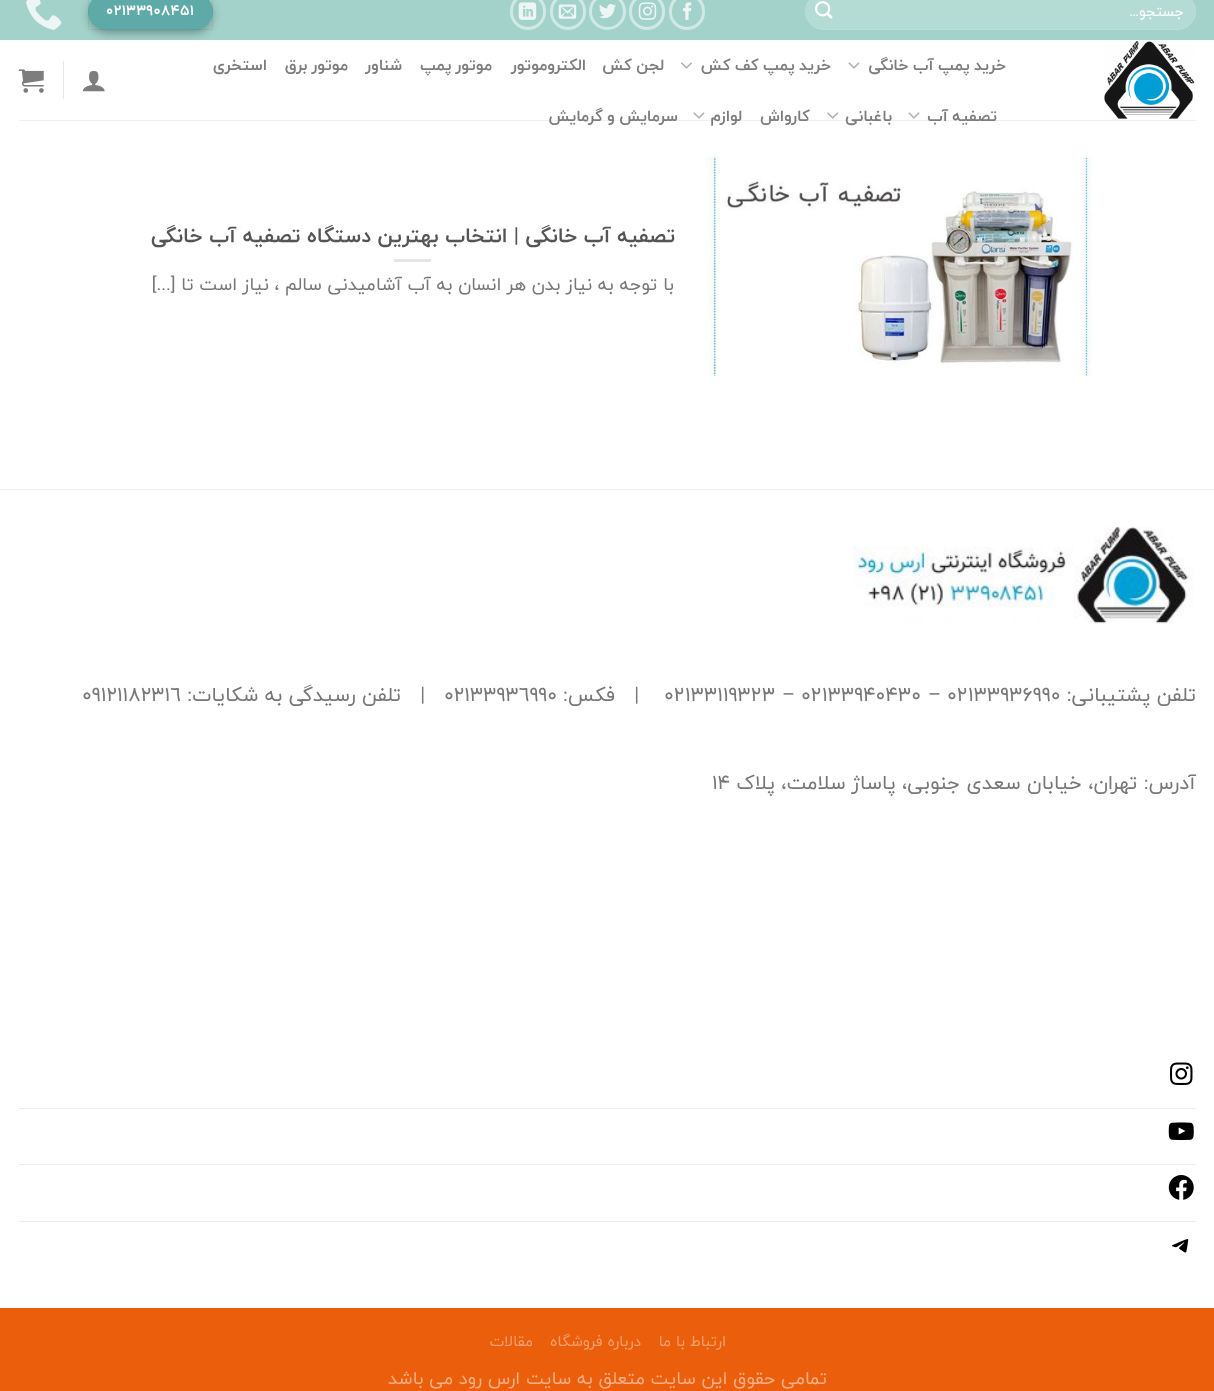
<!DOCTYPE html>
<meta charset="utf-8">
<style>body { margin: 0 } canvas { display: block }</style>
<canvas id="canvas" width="1214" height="1391"></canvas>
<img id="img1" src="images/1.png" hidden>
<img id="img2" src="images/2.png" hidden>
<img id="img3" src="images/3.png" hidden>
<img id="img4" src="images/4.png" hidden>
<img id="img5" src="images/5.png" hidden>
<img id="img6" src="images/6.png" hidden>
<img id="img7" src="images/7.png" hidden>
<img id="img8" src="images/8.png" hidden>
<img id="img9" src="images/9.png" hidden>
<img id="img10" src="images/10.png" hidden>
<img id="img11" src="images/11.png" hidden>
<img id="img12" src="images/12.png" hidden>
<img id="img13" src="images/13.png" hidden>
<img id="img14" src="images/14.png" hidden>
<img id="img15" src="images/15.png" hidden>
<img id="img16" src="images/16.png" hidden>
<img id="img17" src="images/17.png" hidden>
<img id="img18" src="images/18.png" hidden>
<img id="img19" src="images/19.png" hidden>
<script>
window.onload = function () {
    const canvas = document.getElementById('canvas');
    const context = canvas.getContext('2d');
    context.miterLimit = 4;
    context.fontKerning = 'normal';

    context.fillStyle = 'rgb(255, 255, 255)';
    context.fillRect(0, 0, 1214, 1391);
    context.fillStyle = 'rgb(163, 210, 202)';
    context.fillRect(0, 0, 1214, 40);
    context.fillStyle = 'rgb(181, 219, 213)';
    context.beginPath();
    context.roundRect(805, -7, 391, 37, 18.5);
    context.fill();
    context.beginPath();
    context.roundRect(805.5, -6.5, 390, 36, 18);
    context.strokeStyle = 'rgba(255, 255, 255, 0.09)';
    context.stroke();
    context.drawImage(document.getElementById('img1'), 815, 1, 18, 18);
    context.beginPath();
    context.roundRect(670.5, -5.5, 33, 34, 16.5);
    context.strokeStyle = 'rgb(209, 233, 229)';
    context.lineWidth = 3;
    context.stroke();
    context.drawImage(document.getElementById('img2'), 683, 2, 9, 18);
    context.beginPath();
    context.roundRect(630.5, -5.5, 33, 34, 16.5);
    context.stroke();
    context.drawImage(document.getElementById('img3'), 638, 2, 19, 18);
    context.beginPath();
    context.arc(607.5, 11.5, 17, 0, 2 * Math.PI);
    context.stroke();
    context.drawImage(document.getElementById('img4'), 599, 4, 17, 15);
    context.beginPath();
    context.roundRect(551.5, -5.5, 33, 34, 16.5);
    context.stroke();
    context.drawImage(document.getElementById('img5'), 558, 4, 19, 15);
    context.beginPath();
    context.roundRect(511.5, -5.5, 33, 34, 16.5);
    context.stroke();
    context.drawImage(document.getElementById('img6'), 518, 2, 19, 18);
    context.fillStyle = 'rgba(0, 0, 0, 0.23)';
    context.filter = 'blur(4px)';
    context.beginPath();
    context.roundRect(88, -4, 125, 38, 19);
    context.fill();
    context.filter = 'none';
    context.fillStyle = 'rgba(0, 0, 0, 0.16)';
    context.filter = 'blur(4px)';
    context.beginPath();
    context.roundRect(93, 1, 115, 28, 14);
    context.fill();
    context.filter = 'none';
    context.fillStyle = 'rgb(94, 170, 168)';
    context.beginPath();
    context.roundRect(88, -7, 125, 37, 18.5);
    context.fill();
    context.strokeStyle = 'rgba(0, 0, 0, 0.05)';
    context.lineWidth = 1;
    context.strokeRect(88.5, -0.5, 124, 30);
    context.drawImage(document.getElementById('img7'), 26, 0, 36, 30);
    context.drawImage(document.getElementById('img8'), 1104, 40, 91, 79);
    context.drawImage(document.getElementById('img9'), 848, 62, 12, 7);
    context.drawImage(document.getElementById('img10'), 681, 62, 11, 7);
    context.drawImage(document.getElementById('img9'), 908, 112, 12, 7);
    context.drawImage(document.getElementById('img11'), 827, 112, 12, 7);
    context.drawImage(document.getElementById('img9'), 693, 112, 12, 7);
    context.drawImage(document.getElementById('img12'), 82, 70, 23, 22);
    context.fillStyle = 'rgb(230, 230, 230)';
    context.fillRect(63, 61, 1, 38);
    context.drawImage(document.getElementById('img13'), 18, 69, 26, 24);
    context.fillStyle = 'rgba(119, 119, 119, 0.1)';
    context.fillRect(19, 120, 1177, 1);
    context.drawImage(document.getElementById('img14'), 705, 157, 387, 219);
    context.fillStyle = 'rgb(230, 230, 230)';
    context.fillRect(394, 259, 37, 3);
    context.fillStyle = 'rgb(242, 242, 242)';
    context.fillRect(0, 489, 1214, 1);
    context.drawImage(document.getElementById('img15'), 853, 527, 341, 97);
    context.drawImage(document.getElementById('img16'), 1170, 1062, 23, 23);
    context.fillStyle = 'rgb(236, 236, 236)';
    context.fillRect(19, 1108, 1177, 1);
    context.drawImage(document.getElementById('img17'), 1168, 1122, 26, 19);
    context.fillRect(19, 1164, 1177, 1);
    context.drawImage(document.getElementById('img18'), 1168, 1175, 26, 25);
    context.fillRect(19, 1221, 1177, 1);
    context.drawImage(document.getElementById('img19'), 1172, 1239, 17, 14);
    context.fillStyle = 'rgb(235, 94, 11)';
    context.fillRect(0, 1308, 1214, 83);
    context.direction = 'rtl';
    context.font = '14.5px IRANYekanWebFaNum';
    context.fillStyle = 'rgb(255, 255, 255)';
    context.fillText('جستجو', 1184, 16);
    context.font = '14.5px Roboto';
    context.fillText('…', 1139, 16);
    context.letterSpacing = '0.5px';
    context.direction = 'ltr';
    context.font = 'bold 14.5px IRANYekanWebFaNum';
    context.fillText('02133908451', 106, 15);
    context.letterSpacing = '0.3px';
    context.wordSpacing = '-1px';
    context.direction = 'rtl';
    context.font = 'bold 16px IRANYekanWebFaNum';
    context.fillStyle = 'rgb(125, 125, 125)';
    context.fillText('خرید پمپ آب خانگی', 1006, 70);
    context.fillText('خرید پمپ کف کش', 831, 70);
    context.fillText('لجن کش', 664, 70);
    context.wordSpacing = '0px';
    context.fillText('الکتروموتور', 586, 70);
    context.wordSpacing = '-1px';
    context.fillText('موتور پمپ', 492, 70);
    context.wordSpacing = '0px';
    context.fillText('شناور', 402, 70);
    context.wordSpacing = '-1px';
    context.fillText('موتور برق', 348, 70);
    context.wordSpacing = '0px';
    context.fillText('استخری', 267, 70);
    context.wordSpacing = '-1px';
    context.fillText('تصفیه آب', 997, 121);
    context.wordSpacing = '0px';
    context.fillText('باغبانی', 892, 121);
    context.fillText('کارواش', 810, 121);
    context.fillText('لوازم', 742, 121);
    context.wordSpacing = '-1px';
    context.fillText('سرمایش و گرمایش', 678, 121);
    context.letterSpacing = '0px';
    context.wordSpacing = '0px';
    context.font = 'bold 20.7px IRANYekanWebFaNum';
    context.fillStyle = 'rgb(85, 85, 85)';
    context.fillText('تصفیه آب خانگی | انتخاب بهترین دستگاه تصفیه آب خانگی', 675, 242);
    context.font = '18px IRANYekanWebFaNum';
    context.fillStyle = 'rgb(119, 119, 119)';
    context.fillText('با توجه به نیاز بدن هر انسان به آب آشامیدنی سالم ، نیاز است تا [...]', 674, 290);
    context.font = '20px IRANYekanWebFaNum';
    context.fillText('تلفن پشتیبانی:', 1196, 701);
    context.direction = 'ltr';
    context.fillText('02133936990', 947, 701);
    context.font = '20px Roboto';
    context.fillText('–', 928, 701);
    context.font = '20px IRANYekanWebFaNum';
    context.fillText('02133940430', 801, 701);
    context.font = '20px Roboto';
    context.fillText('–', 782, 701);
    context.font = '20px IRANYekanWebFaNum';
    context.fillText('02133119323', 664, 701);
    context.direction = 'rtl';
    context.fillText('|   فکس:', 639, 701);
    context.direction = 'ltr';
    context.fillText('٠٢١٣٣٩٣٦٩٩٠', 444, 701);
    context.direction = 'rtl';
    context.fillText('|   تلفن رسیدگی به شکایات:', 425, 701);
    context.direction = 'ltr';
    context.fillText('٠٩١٢١١٨٢٣١٦', 82, 701);
    context.direction = 'rtl';
    context.fillText('آدرس: تهران، خیابان سعدی جنوبی، پاساژ سلامت، پلاک', 1196, 789);
    context.direction = 'ltr';
    context.fillText('14', 712, 789);
    context.direction = 'rtl';
    context.font = '15.25px IRANYekanWebFaNum';
    context.fillStyle = 'rgb(243, 159, 109)';
    context.fillText('ارتباط با ما', 726, 1346);
    context.fillText('درباره فروشگاه', 641, 1346);
    context.fillText('مقالات', 533, 1346);
    context.font = '18px IRANYekanWebFaNum';
    context.fillStyle = 'rgb(245, 175, 133)';
    context.fillText('تمامی حقوق این سایت متعلق به سایت ارس رود می باشد', 827, 1384);
};
</script>
